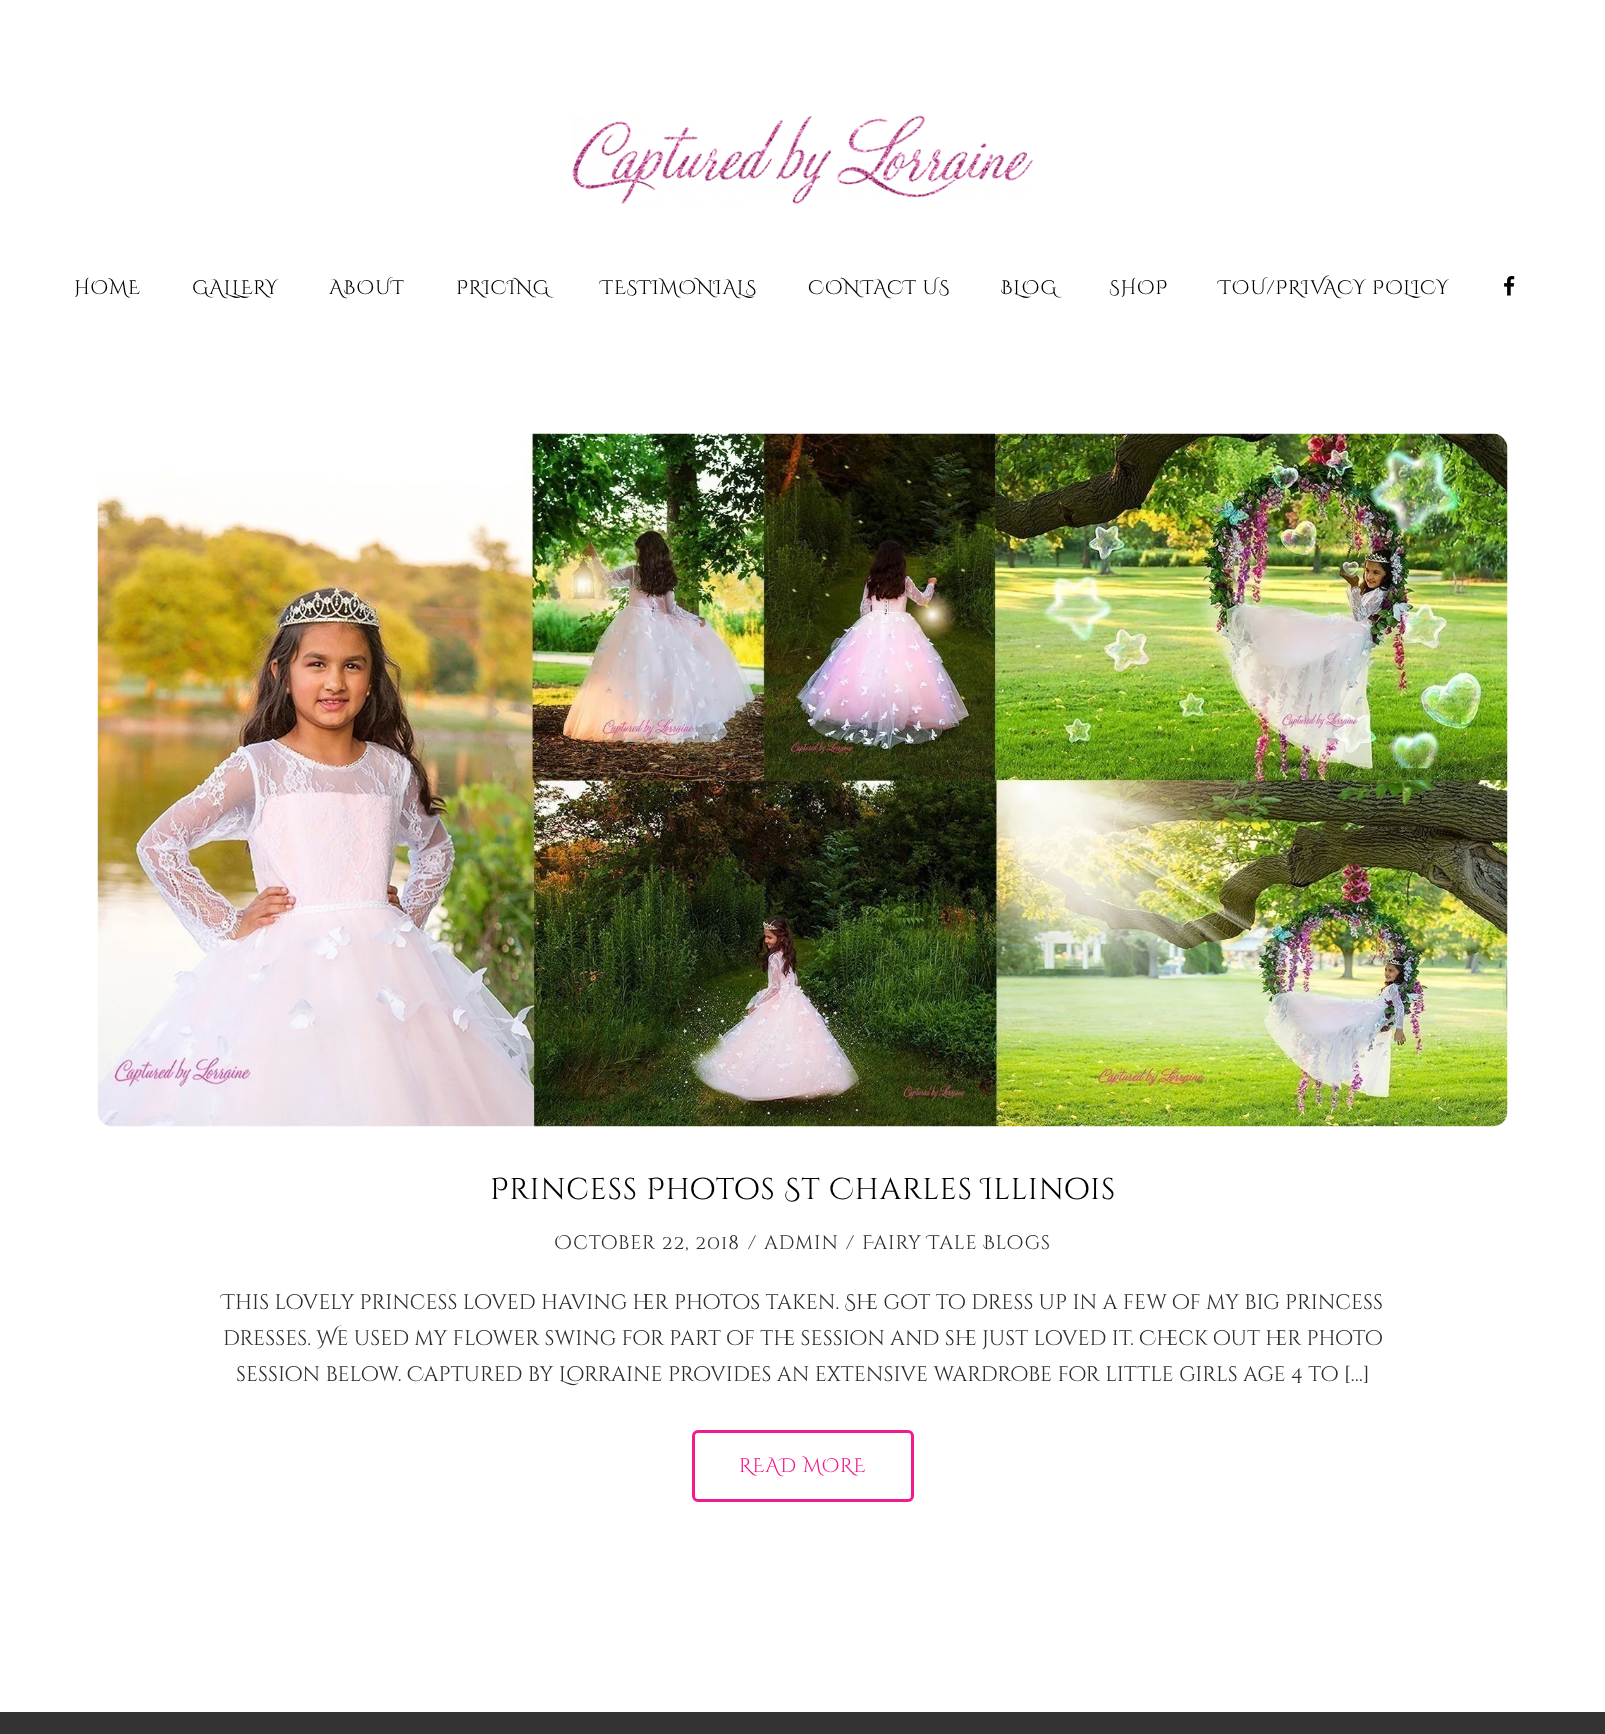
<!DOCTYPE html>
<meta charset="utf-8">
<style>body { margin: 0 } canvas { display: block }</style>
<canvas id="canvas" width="1605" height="1734"></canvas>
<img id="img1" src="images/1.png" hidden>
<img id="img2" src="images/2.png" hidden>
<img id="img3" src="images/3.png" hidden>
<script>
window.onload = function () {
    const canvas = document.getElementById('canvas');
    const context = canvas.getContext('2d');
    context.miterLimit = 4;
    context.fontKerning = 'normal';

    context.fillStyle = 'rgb(255, 255, 255)';
    context.fillRect(0, 0, 1605, 1734);
    context.drawImage(document.getElementById('img1'), 572, 115, 461, 89);
    context.drawImage(document.getElementById('img2'), 1504, 276, 11, 20);
    context.drawImage(document.getElementById('img3'), 97, 433, 1411, 694);
    context.beginPath();
    context.roundRect(693.5, 1431.5, 219, 69, 4.5);
    context.strokeStyle = 'rgb(242, 26, 141)';
    context.lineWidth = 3;
    context.stroke();
    context.fillStyle = 'rgb(51, 51, 51)';
    context.fillRect(0, 1712, 1605, 22);
    context.letterSpacing = '0.85px';
    context.font = '19.5px Cinzel Decorative';
    context.fillStyle = 'rgb(0, 0, 0)';
    context.fillText('HOME', 74, 294);
    context.fillText('GALLERY', 192, 294);
    context.fillText('ABOUT', 329, 294);
    context.fillText('PRICING', 456, 294);
    context.fillText('TESTIMONIALS', 601, 294);
    context.fillText('CONTACT US', 808, 294);
    context.fillText('BLOG', 1001, 294);
    context.fillText('SHOP', 1109, 294);
    context.fillText('TOU/PRIVACY POLICY', 1219, 294);
    context.font = '30px Cinzel Decorative';
    context.fillText('Princess Photos St Charles Illinois', 490, 1199);
    context.font = '19.5px Cinzel Decorative';
    context.fillStyle = 'rgb(45, 45, 45)';
    context.fillText('October 22, 2018', 554, 1249);
    context.fillText('/', 748, 1249);
    context.fillText('admin', 764, 1249);
    context.fillText('/', 846, 1249);
    context.fillText('Fairy Tale Blogs', 862, 1249);
    context.letterSpacing = '0px';
    context.font = '21px Cinzel Decorative';
    context.fillText('This lovely princess loved having her photos taken. She got to dress up in a few of my big princess', 222, 1309);
    context.fillText('dresses. We used my flower swing for part of the session and she just loved it. Check out her photo', 223, 1345);
    context.fillText('session below. Captured by Lorraine provides an extensive wardrobe for little girls age 4 to […]', 236, 1381);
    context.letterSpacing = '0.85px';
    context.font = '19.5px Cinzel Decorative';
    context.fillStyle = 'rgb(242, 26, 141)';
    context.fillText('READ MORE', 739, 1472);
};
</script>
